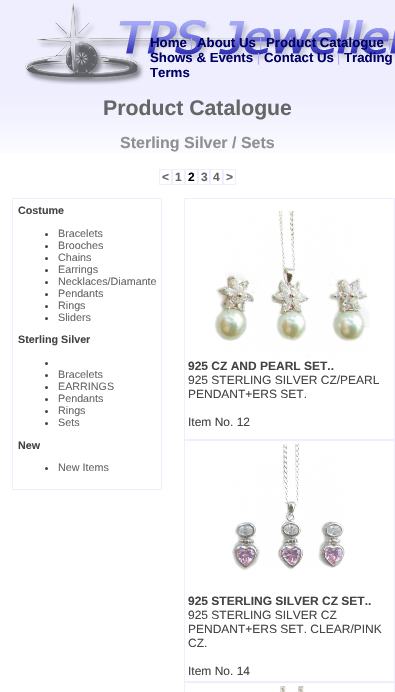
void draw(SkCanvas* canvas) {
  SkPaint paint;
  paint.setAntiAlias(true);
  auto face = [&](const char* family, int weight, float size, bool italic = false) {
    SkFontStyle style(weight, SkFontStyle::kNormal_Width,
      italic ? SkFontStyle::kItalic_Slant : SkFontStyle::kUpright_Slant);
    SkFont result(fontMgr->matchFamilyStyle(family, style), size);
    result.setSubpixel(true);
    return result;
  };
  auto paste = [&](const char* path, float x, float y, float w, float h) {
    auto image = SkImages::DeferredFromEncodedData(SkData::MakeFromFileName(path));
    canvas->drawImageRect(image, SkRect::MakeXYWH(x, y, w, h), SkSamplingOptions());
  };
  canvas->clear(0xffeeeeff);
  paste("img/1.png", 25, 3, 370, 82);
  paint.setColor(0xffffffff);
  canvas->drawRect(SkRect::MakeXYWH(0, 153, 395, 539), paint);
  paste("img/2.png", 0, 90, 395, 63);
  paint.setStroke(true);
  paint.setStrokeWidth(1);
  paint.setColor(0xffeeeeff);
  canvas->drawRect(SkRect::MakeXYWH(159.5f, 169.5f, 12, 15), paint);
  canvas->drawRect(SkRect::MakeXYWH(172.5f, 169.5f, 12, 15), paint);
  canvas->drawRect(SkRect::MakeXYWH(185.5f, 169.5f, 12, 15), paint);
  canvas->drawRect(SkRect::MakeXYWH(198.5f, 169.5f, 11, 15), paint);
  canvas->drawRect(SkRect::MakeXYWH(210.5f, 169.5f, 12, 15), paint);
  canvas->drawRect(SkRect::MakeXYWH(223.5f, 169.5f, 12, 15), paint);
  canvas->drawRect(SkRect::MakeXYWH(12.5f, 198.5f, 149, 291), paint);
  paint.setStroke(false);
  paint.setColor(0xff444444);
  canvas->drawCircle(46.5f, 234.5f, 1.5f, paint);
  canvas->drawCircle(46.5f, 246.5f, 1.5f, paint);
  canvas->drawCircle(46.5f, 258.5f, 1.5f, paint);
  canvas->drawCircle(46.5f, 270.5f, 1.5f, paint);
  canvas->drawCircle(46.5f, 282.5f, 1.5f, paint);
  canvas->drawCircle(46.5f, 294.5f, 1.5f, paint);
  canvas->drawCircle(46.5f, 306.5f, 1.5f, paint);
  canvas->drawCircle(46.5f, 318.5f, 1.5f, paint);
  canvas->drawCircle(46.5f, 363.5f, 1.5f, paint);
  canvas->drawCircle(46.5f, 375.5f, 1.5f, paint);
  canvas->drawCircle(46.5f, 387.5f, 1.5f, paint);
  canvas->drawCircle(46.5f, 399.5f, 1.5f, paint);
  canvas->drawCircle(46.5f, 411.5f, 1.5f, paint);
  canvas->drawCircle(46.5f, 423.5f, 1.5f, paint);
  canvas->drawCircle(46.5f, 468.5f, 1.5f, paint);
  paint.setStroke(true);
  paint.setColor(0xffeeeeff);
  canvas->drawRect(SkRect::MakeXYWH(184.5f, 198.5f, 210, 241), paint);
  paste("img/3.png", 214, 211, 156, 147);
  canvas->drawRect(SkRect::MakeXYWH(184.5f, 440.5f, 210, 241), paint);
  paste("img/4.png", 231, 444, 114, 127);
  canvas->drawRect(SkRect::MakeXYWH(184.5f, 682.5f, 210, 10), paint);
  paste("img/5.png", 280, 686, 24, 6);
  auto f0 = face("Liberation Sans", 700, 13.25f);
  paint.setStroke(false);
  paint.setColor(0xff000066);
  canvas->drawString("Home", 150, 47, f0, paint);
  auto f1 = face("Liberation Sans", 400, 12);
  paint.setColor(0xffaaaaff);
  canvas->drawString("|", 190, 47, f1, paint);
  paint.setColor(0xff000066);
  canvas->drawString("About Us", 197, 47, f0, paint);
  paint.setColor(0xffaaaaff);
  canvas->drawString("|", 259, 47, f1, paint);
  paint.setColor(0xff000066);
  canvas->drawString("Product Catalogue", 266, 47, f0, paint);
  paint.setColor(0xffaaaaff);
  canvas->drawString("|", 388, 47, f1, paint);
  paint.setColor(0xff000066);
  canvas->drawString("Shows & Events", 150, 62, f0, paint);
  paint.setColor(0xffaaaaff);
  canvas->drawString("|", 257, 62, f1, paint);
  paint.setColor(0xff000066);
  canvas->drawString("Contact Us", 264, 62, f0, paint);
  paint.setColor(0xffaaaaff);
  canvas->drawString("|", 337, 62, f1, paint);
  paint.setColor(0xff000066);
  canvas->drawString("Trading", 344, 62, f0, paint);
  canvas->drawString("Terms", 150, 77, f0, paint);
  auto f2 = face("Liberation Sans", 700, 21.25f);
  paint.setColor(0xff666666);
  canvas->drawString("Product Catalogue", 103, 115, f2, paint);
  auto f3 = face("Liberation Sans", 700, 16);
  paint.setColor(0xff909090);
  canvas->drawString("Sterling Silver / Sets", 120, 148, f3, paint);
  auto f4 = face("Liberation Sans", 700, 12);
  paint.setColor(0xff666666);
  canvas->drawString("<", 162, 181, f4, paint);
  canvas->drawString("1", 175, 181, f4, paint);
  paint.setColor(0xff000000);
  canvas->drawString("2", 188, 181, f4, paint);
  paint.setColor(0xff666666);
  {
    const struct { const char* s; float x, y; } items[] = {
      {"3", 201, 181},
      {"4", 213, 181},
      {">", 226, 181},
    };
    for (auto [s, x, y] : items) {
      canvas->drawString(s, x, y, f4, paint);
    }
  }
  auto f5 = face("Liberation Sans", 700, 10.75f);
  paint.setColor(0xff444444);
  canvas->drawString("Costume", 18, 214, f5, paint);
  auto f6 = face("Liberation Sans", 400, 10.75f);
  paint.setColor(0xff666666);
  {
    const struct { const char* s; float x, y; } items[] = {
      {"Bracelets", 58, 237},
      {"Brooches", 58, 249},
      {"Chains", 58, 261},
      {"Earrings", 58, 273},
      {"Necklaces/Diamante", 58, 285},
      {"Pendants", 58, 297},
      {"Rings", 58, 309},
      {"Sliders", 58, 321},
    };
    for (auto [s, x, y] : items) {
      canvas->drawString(s, x, y, f6, paint);
    }
  }
  paint.setColor(0xff444444);
  canvas->drawString("Sterling Silver", 18, 343, f5, paint);
  paint.setColor(0xff666666);
  {
    const struct { const char* s; float x, y; } items[] = {
      {"Bracelets", 58, 378},
      {"EARRINGS", 58, 390},
      {"Pendants", 58, 402},
      {"Rings", 58, 414},
      {"Sets", 58, 426},
    };
    for (auto [s, x, y] : items) {
      canvas->drawString(s, x, y, f6, paint);
    }
  }
  paint.setColor(0xff444444);
  canvas->drawString("New", 18, 449, f5, paint);
  paint.setColor(0xff666666);
  canvas->drawString("New Items", 58, 471, f6, paint);
  paint.setColor(0xff444444);
  canvas->drawString("925 CZ AND PEARL SET..", 188, 370, f4, paint);
  {
    const struct { const char* s; float x, y; } items[] = {
      {"925 STERLING SILVER CZ/PEARL", 188, 384},
      {"PENDANT+ERS SET.", 188, 398},
      {"Item No. 12", 188, 426},
    };
    for (auto [s, x, y] : items) {
      canvas->drawString(s, x, y, f1, paint);
    }
  }
  canvas->drawString("925 STERLING SILVER CZ SET..", 188, 605, f4, paint);
  {
    const struct { const char* s; float x, y; } items[] = {
      {"925 STERLING SILVER CZ", 188, 619},
      {"PENDANT+ERS SET. CLEAR/PINK", 188, 633},
      {"CZ.", 188, 647},
      {"Item No. 14", 188, 675},
    };
    for (auto [s, x, y] : items) {
      canvas->drawString(s, x, y, f1, paint);
    }
  }
}
